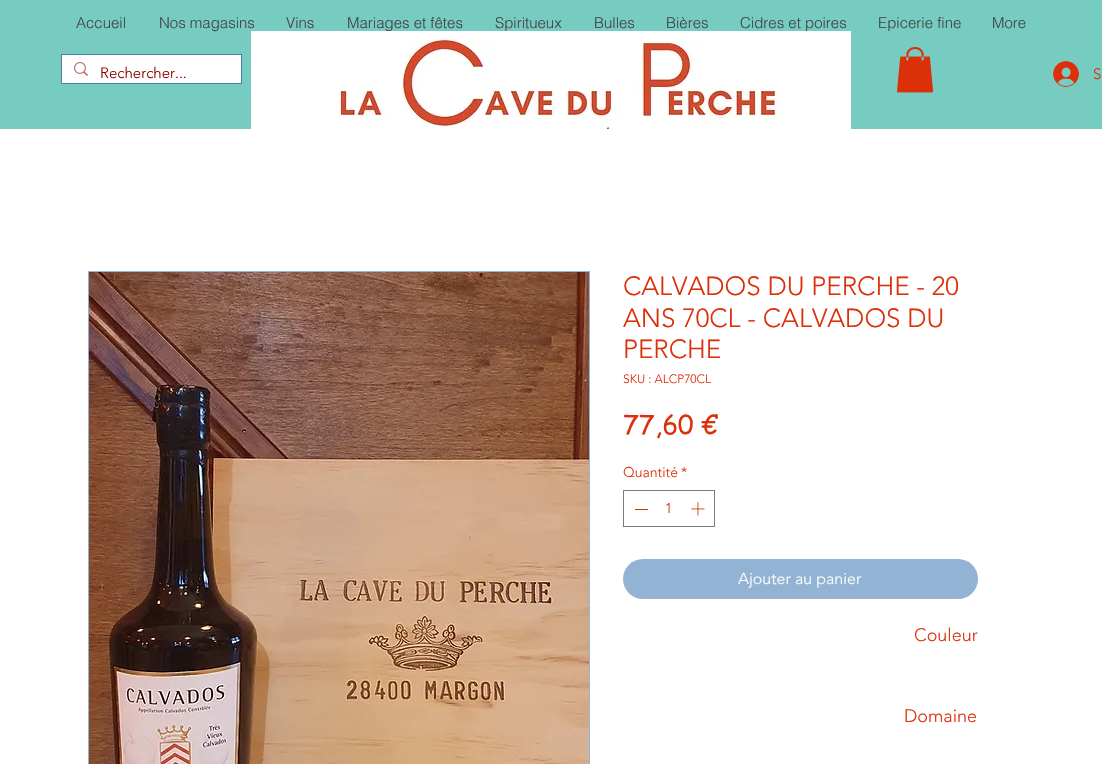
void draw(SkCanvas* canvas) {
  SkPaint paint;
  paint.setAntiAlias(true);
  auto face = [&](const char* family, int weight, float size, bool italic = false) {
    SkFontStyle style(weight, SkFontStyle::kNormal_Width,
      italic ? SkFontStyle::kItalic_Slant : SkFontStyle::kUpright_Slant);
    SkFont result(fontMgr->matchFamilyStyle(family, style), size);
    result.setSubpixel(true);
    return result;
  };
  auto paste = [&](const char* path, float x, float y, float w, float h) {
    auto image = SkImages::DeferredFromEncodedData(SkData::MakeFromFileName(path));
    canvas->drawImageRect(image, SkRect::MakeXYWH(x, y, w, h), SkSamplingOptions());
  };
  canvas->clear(0xff77ccc1);
  paint.setStroke(true);
  paint.setStrokeWidth(1);
  paint.setColor(0xff4e7cb0);
  canvas->drawRect(SkRect::MakeXYWH(61.5f, 54.5f, 180, 29), paint);
  paint.setStroke(false);
  paint.setColor(0xffffffff);
  canvas->drawRect(SkRect::MakeXYWH(62, 55, 179, 28), paint);
  paste("img/1.png", 74, 62, 14, 14);
  paste("img/3.png", 896, 47, 38, 46);
  paste("img/4.png", 1053, 61, 26, 26);
  canvas->drawRect(SkRect::MakeXYWH(0, 129, 1102, 635), paint);
  paint.setStroke(true);
  paint.setColor(0xff93b3d4);
  canvas->drawRect(SkRect::MakeXYWH(88.5f, 271.5f, 501, 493), paint);
  paste("img/5.png", 89, 272, 500, 492);
  paint.setColor(0xff7d7c7a);
  canvas->drawRect(SkRect::MakeXYWH(623.5f, 490.5f, 91, 36), paint);
  paint.setStroke(false);
  paint.setColor(0xffdc300b);
  canvas->drawRect(SkRect::MakeXYWH(635, 509, 13, 1), paint);
  paste("img/6.png", 691, 502, 14, 14);
  paint.setColor(0xff93b3d4);
  canvas->drawRoundRect(SkRect::MakeXYWH(623, 559, 355, 40), 20, 20, paint);
  auto f0 = face("helvetica", 300, 15);
  paint.setColor(0xff444444);
  {
    const struct { const char* s; float x, y; } items[] = {
      {"Accueil", 76, 28},
      {"Nos magasins", 159, 28},
      {"Vins", 286, 28},
      {"Mariages et fêtes", 347, 28},
      {"Spiritueux", 495, 28},
      {"Bulles", 594, 28},
      {"Bières", 666, 28},
      {"Cidres et poires", 740, 28},
      {"Epicerie fine", 878, 28},
      {"More", 992, 28},
    };
    for (auto [s, x, y] : items) {
      canvas->drawString(s, x, y, f0, paint);
    }
  }
  auto f1 = face("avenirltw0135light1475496", 300, 15);
  paint.setColor(0xff8b0000);
  canvas->drawString("Rechercher...", 100, 78, f1, paint);
  paste("img/2.png", 251, 31, 600, 98);
  paint.setColor(0xffdc300b);
  canvas->drawString("S", 1093, 79, f1, paint);
  auto f2 = face("avenirltw0135light1475496", 300, 26);
  {
    const struct { const char* s; float x, y; } items[] = {
      {"CALVADOS DU PERCHE - 20", 623, 295},
      {"ANS 70CL - CALVADOS DU", 623, 327},
      {"PERCHE", 623, 358},
    };
    for (auto [s, x, y] : items) {
      canvas->drawString(s, x, y, f2, paint);
    }
  }
  auto f3 = face("avenirltw0135light1475496", 300, 12);
  canvas->drawString("SKU : ALCP70CL", 623, 383, f3, paint);
  auto f4 = face("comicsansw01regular", 400, 26);
  canvas->drawString("77,60 €", 623, 434, f4, paint);
  auto f5 = face("avenirltw0135light1475496", 300, 14);
  {
    const struct { const char* s; float x, y; } items[] = {
      {"Quantité", 623, 477},
      {"*", 681, 477},
      {"1", 665, 513},
    };
    for (auto [s, x, y] : items) {
      canvas->drawString(s, x, y, f5, paint);
    }
  }
  auto f6 = face("avenirltw0135light1475496", 300, 16);
  paint.setColor(0xffffffff);
  canvas->drawString("Ajouter au panier", 738, 584, f6, paint);
  auto f7 = face("avenirltw0135light1475496", 300, 18);
  paint.setColor(0xffdc300b);
  canvas->drawString("Couleur", 914, 641, f7, paint);
  canvas->drawString("Domaine", 904, 722, f7, paint);
}
